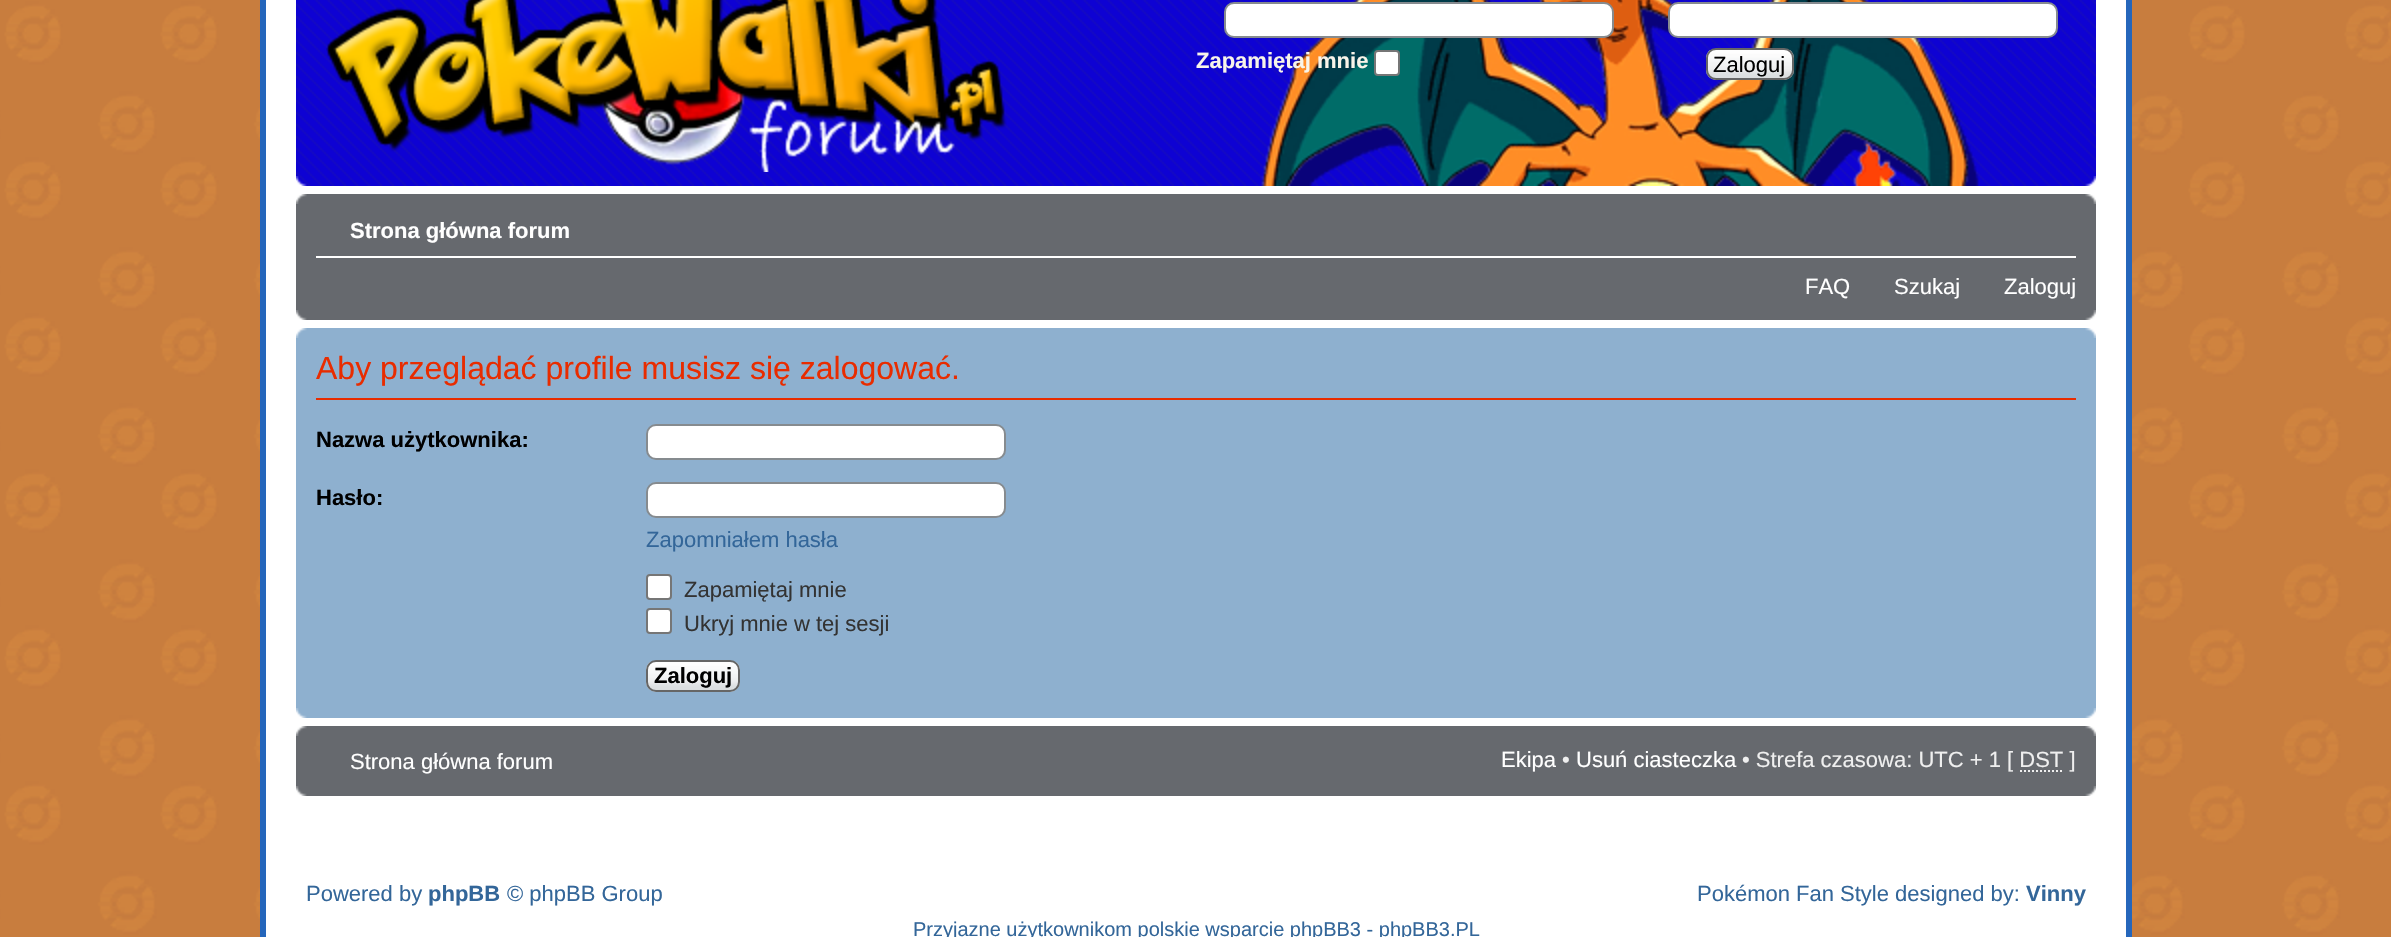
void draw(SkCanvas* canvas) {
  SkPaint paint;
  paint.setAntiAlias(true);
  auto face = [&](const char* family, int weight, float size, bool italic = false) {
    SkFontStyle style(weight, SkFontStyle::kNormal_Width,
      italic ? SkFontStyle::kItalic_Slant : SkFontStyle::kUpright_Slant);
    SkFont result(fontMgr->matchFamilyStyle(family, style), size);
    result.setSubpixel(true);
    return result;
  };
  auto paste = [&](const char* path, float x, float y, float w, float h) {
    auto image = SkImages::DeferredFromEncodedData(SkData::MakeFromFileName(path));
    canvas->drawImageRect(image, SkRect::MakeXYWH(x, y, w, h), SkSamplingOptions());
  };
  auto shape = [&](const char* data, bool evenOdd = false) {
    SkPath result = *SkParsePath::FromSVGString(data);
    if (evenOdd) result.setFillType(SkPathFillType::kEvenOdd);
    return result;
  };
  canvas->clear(0xffffffff);
  paste("img/1.png", 0, 0, 2391, 937);
  paint.setColor(0xffffffff);
  canvas->drawRect(SkRect::MakeXYWH(263, -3, 1866, 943), paint);
  paint.setStroke(true);
  paint.setStrokeWidth(6);
  paint.setColor(0xff2566bb);
  canvas->drawRect(SkRect::MakeXYWH(263, -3, 1866, 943), paint);
  paste("img/2.png", 296, 0, 1800, 186);
  paste("img/3.png", 326, 0, 681, 172);
  paint.setStroke(false);
  paint.setColor(0xffffffff);
  canvas->drawRoundRect(SkRect::MakeXYWH(1225, 3, 388, 34), 9, 9, paint);
  paint.setStroke(true);
  paint.setStrokeWidth(2);
  paint.setColor(0xff868b8f);
  canvas->drawRoundRect(SkRect::MakeXYWH(1225, 3, 388, 34), 9, 9, paint);
  paint.setStroke(false);
  paint.setColor(0xffffffff);
  canvas->drawRoundRect(SkRect::MakeXYWH(1669, 3, 388, 34), 9, 9, paint);
  paint.setStroke(true);
  paint.setColor(0xff868b8f);
  canvas->drawRoundRect(SkRect::MakeXYWH(1669, 3, 388, 34), 9, 9, paint);
  paint.setStroke(false);
  paint.setColor(0xffffffff);
  canvas->drawRoundRect(SkRect::MakeXYWH(1375, 51, 24, 24), 3, 3, paint);
  paint.setStroke(true);
  paint.setColor(0xff767676);
  canvas->drawRoundRect(SkRect::MakeXYWH(1375, 51, 24, 24), 3, 3, paint);
  paste("img/4.png", 1706, 50, 88, 30);
  paint.setColor(0xff666666);
  canvas->drawRoundRect(SkRect::MakeXYWH(1707, 49, 86, 30), 9, 9, paint);
  paste("img/5.png", 296, 176, 11, 10);
  paste("img/6.png", 2085, 176, 11, 10);
  paint.setStroke(false);
  paint.setColor(0xff66696e);
  canvas->drawRect(SkRect::MakeXYWH(296, 194, 1800, 126), paint);
  paste("img/7.png", 296, 194, 11, 10);
  paste("img/8.png", 2085, 194, 11, 10);
  paint.setColor(0xffffffff);
  canvas->drawRect(SkRect::MakeXYWH(316, 256, 1760, 2), paint);
  paste("img/9.png", 296, 310, 11, 10);
  paste("img/10.png", 2085, 310, 11, 10);
  paint.setColor(0xff8eb0cf);
  canvas->drawRect(SkRect::MakeXYWH(296, 328, 1800, 390), paint);
  paste("img/11.png", 296, 328, 11, 10);
  paste("img/12.png", 2085, 328, 11, 10);
  paint.setColor(0xffe82c00);
  canvas->drawRect(SkRect::MakeXYWH(316, 398, 1760, 2), paint);
  paint.setColor(0xffffffff);
  canvas->drawRoundRect(SkRect::MakeXYWH(647, 425, 358, 34), 9, 9, paint);
  paint.setStroke(true);
  paint.setColor(0xff868b8f);
  canvas->drawRoundRect(SkRect::MakeXYWH(647, 425, 358, 34), 9, 9, paint);
  paint.setStroke(false);
  paint.setColor(0xffffffff);
  canvas->drawRoundRect(SkRect::MakeXYWH(647, 483, 358, 34), 9, 9, paint);
  paint.setStroke(true);
  paint.setColor(0xff868b8f);
  canvas->drawRoundRect(SkRect::MakeXYWH(647, 483, 358, 34), 9, 9, paint);
  paint.setStroke(false);
  paint.setColor(0xffffffff);
  canvas->drawRoundRect(SkRect::MakeXYWH(647, 575, 24, 24), 3, 3, paint);
  paint.setStroke(true);
  paint.setColor(0xff767676);
  canvas->drawRoundRect(SkRect::MakeXYWH(647, 575, 24, 24), 3, 3, paint);
  paint.setStroke(false);
  paint.setColor(0xffffffff);
  canvas->drawRoundRect(SkRect::MakeXYWH(647, 609, 24, 24), 3, 3, paint);
  paint.setStroke(true);
  paint.setColor(0xff767676);
  canvas->drawRoundRect(SkRect::MakeXYWH(647, 609, 24, 24), 3, 3, paint);
  paste("img/13.png", 646, 662, 94, 30);
  paint.setColor(0xff666666);
  canvas->drawRoundRect(SkRect::MakeXYWH(647, 661, 92, 30), 9, 9, paint);
  paste("img/14.png", 296, 708, 11, 10);
  paste("img/15.png", 2085, 708, 11, 10);
  paint.setStroke(false);
  paint.setColor(0xff66696e);
  canvas->drawRect(SkRect::MakeXYWH(296, 726, 1800, 70), paint);
  paste("img/7.png", 296, 726, 11, 10);
  paste("img/8.png", 2085, 726, 11, 10);
  paint.setStroke(true);
  paint.setColor(0xffefefef);
  paint.setPathEffect(SkDashPathEffect::Make({{2, 2}}, 0));
  canvas->drawPath(shape("M2020 771H2064"), paint);
  paint.setPathEffect(nullptr);
  paste("img/9.png", 296, 786, 11, 10);
  paste("img/10.png", 2085, 786, 11, 10);
  auto f0 = face("Liberation Sans", 700, 22);
  paint.setStroke(false);
  paint.setColor(0xfff8f4e9);
  canvas->drawString("Zapamiętaj mnie", 1196, 68, f0, paint);
  auto f1 = face("Liberation Sans", 400, 22);
  paint.setColor(0xff000000);
  canvas->drawString("Zaloguj", 1713, 72, f1, paint);
  paint.setColor(0xffffffff);
  canvas->drawString("Strona główna forum", 350, 238, f0, paint);
  {
    const struct { const char* s; float x, y; } items[] = {
      {"FAQ", 1805, 294},
      {"Szukaj", 1894, 294},
      {"Zaloguj", 2004, 294},
    };
    for (auto [s, x, y] : items) {
      canvas->drawString(s, x, y, f1, paint);
    }
  }
  auto f2 = face("Liberation Sans", 400, 32);
  paint.setColor(0xffe82c00);
  canvas->drawString("Aby przeglądać profile musisz się zalogować.", 316, 379, f2, paint);
  paint.setColor(0xff000000);
  canvas->drawString("Nazwa użytkownika:", 316, 447, f0, paint);
  canvas->drawString("Hasło:", 316, 505, f0, paint);
  paint.setColor(0xff336699);
  canvas->drawString("Zapomniałem hasła", 646, 547, f1, paint);
  paint.setColor(0xff333333);
  canvas->drawString("Zapamiętaj mnie", 684, 597, f1, paint);
  canvas->drawString("Ukryj mnie w tej sesji", 684, 631, f1, paint);
  paint.setColor(0xff000000);
  canvas->drawString("Zaloguj", 654, 683, f0, paint);
  paint.setColor(0xffffffff);
  canvas->drawString("Strona główna forum", 350, 769, f1, paint);
  canvas->drawString("Ekipa", 1501, 767, f1, paint);
  paint.setColor(0xffefefef);
  canvas->drawString("•", 1562, 767, f1, paint);
  paint.setColor(0xffffffff);
  canvas->drawString("Usuń ciasteczka", 1576, 767, f1, paint);
  paint.setColor(0xffefefef);
  canvas->drawString("• Strefa czasowa: UTC + 1 [ DST ]", 1742, 767, f1, paint);
  paint.setColor(0xff336699);
  canvas->drawString("Powered by", 306, 901, f1, paint);
  canvas->drawString("phpBB", 428, 901, f0, paint);
  canvas->drawString("© phpBB Group", 507, 901, f1, paint);
  canvas->drawString("Pokémon Fan Style designed by:", 1697, 901, f1, paint);
  canvas->drawString("Vinny", 2026, 901, f0, paint);
  auto f3 = face("Liberation Sans", 400, 20);
  canvas->drawString("Przyjazne użytkownikom polskie wsparcie phpBB3 - phpBB3.PL", 913, 936, f3, paint);
}
